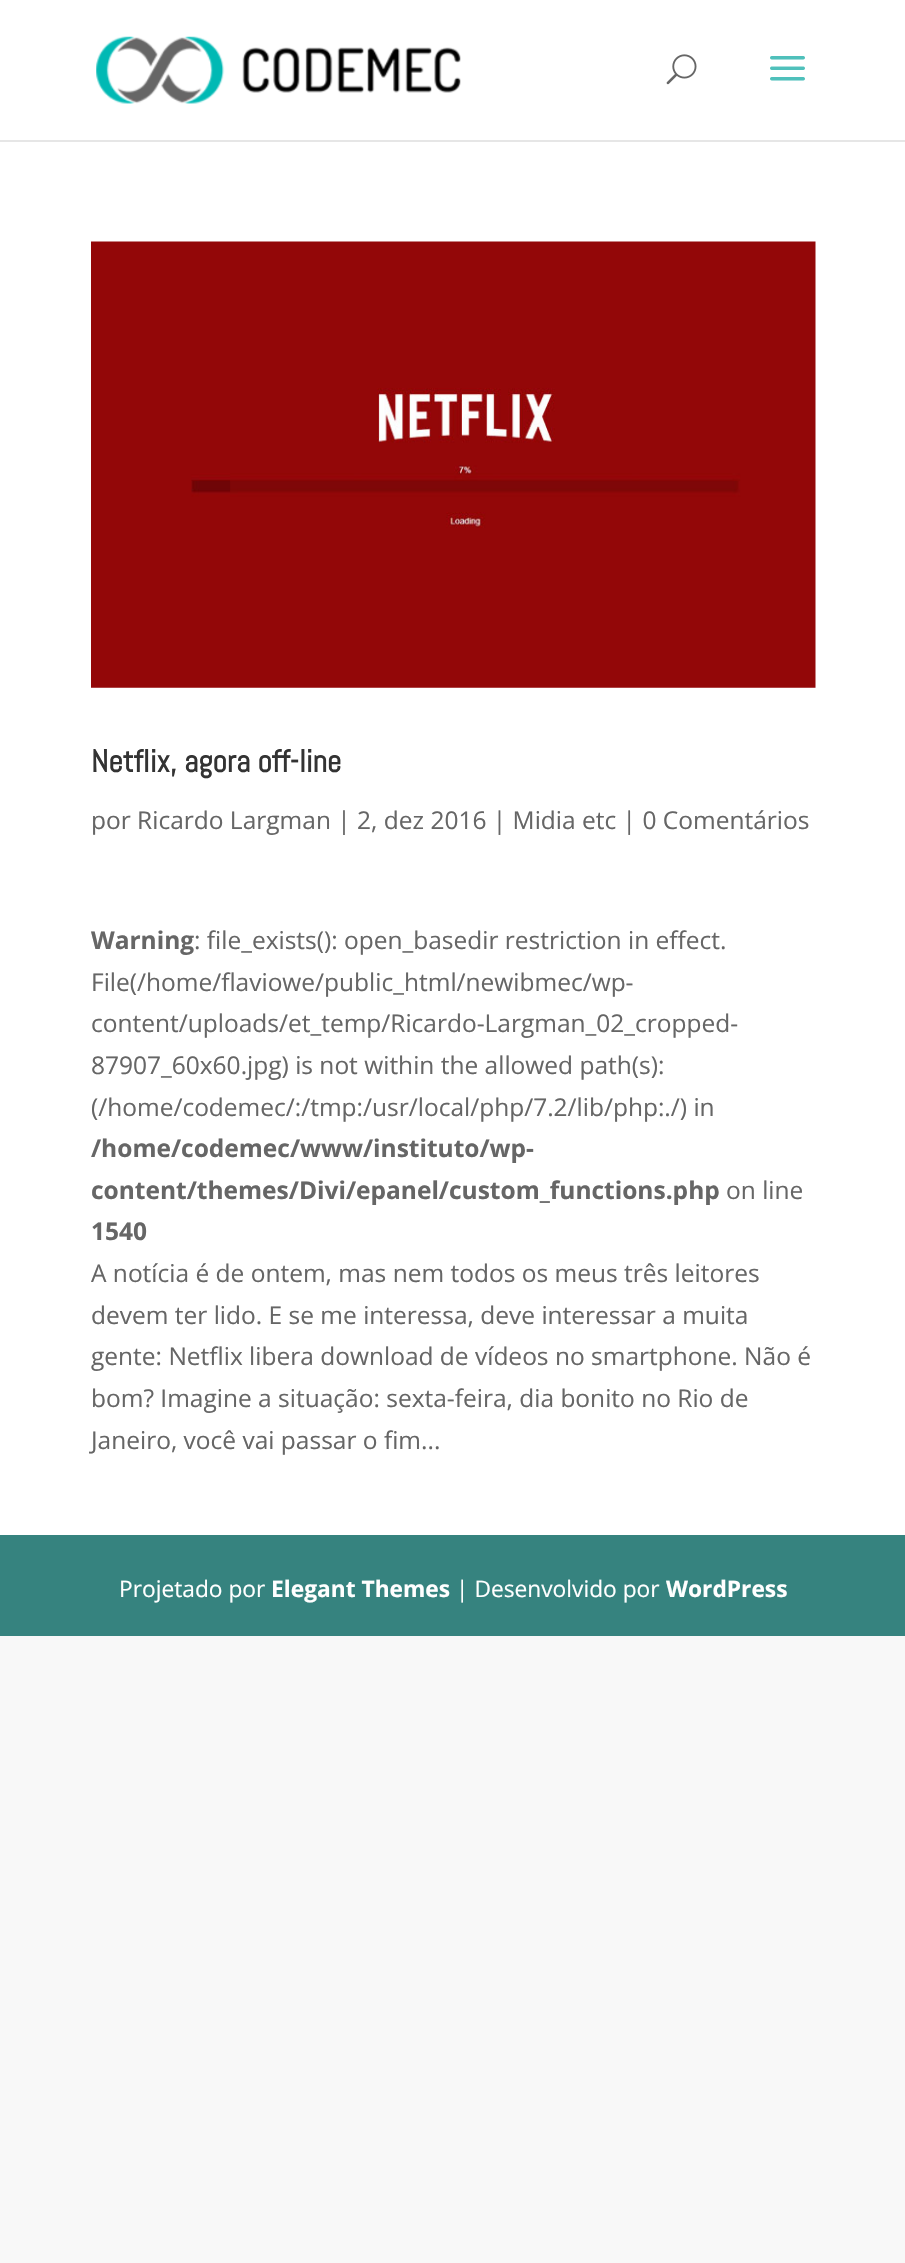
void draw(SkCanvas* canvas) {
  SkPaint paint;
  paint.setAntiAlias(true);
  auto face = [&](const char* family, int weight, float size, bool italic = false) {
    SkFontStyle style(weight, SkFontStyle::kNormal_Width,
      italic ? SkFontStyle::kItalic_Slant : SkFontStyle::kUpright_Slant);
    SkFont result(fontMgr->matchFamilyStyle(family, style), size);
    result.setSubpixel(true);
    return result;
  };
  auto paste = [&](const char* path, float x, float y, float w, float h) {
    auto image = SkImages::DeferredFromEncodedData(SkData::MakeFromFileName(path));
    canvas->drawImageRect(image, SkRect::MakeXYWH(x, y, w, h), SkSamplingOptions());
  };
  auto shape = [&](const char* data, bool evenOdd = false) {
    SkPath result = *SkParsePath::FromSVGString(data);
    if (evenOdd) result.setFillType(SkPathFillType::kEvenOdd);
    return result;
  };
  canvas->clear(0xfff8f8f8);
  paint.setColor(0xffe6e6e6);
  canvas->drawPath(shape("M0 140V142H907V2H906V140Z"), paint);
  paint.setColor(0xffffffff);
  canvas->drawRect(SkRect::MakeXYWH(0, 0, 905, 140), paint);
  paste("img/1.png", 96, 36, 365, 68);
  paste("img/2.png", 666, 54, 31, 31);
  paste("img/3.png", 770, 56, 35, 25);
  canvas->drawRect(SkRect::MakeXYWH(0, 142, 905, 1393), paint);
  paste("img/4.png", 91, 241, 725, 447);
  paint.setColor(0xff36837f);
  canvas->drawRect(SkRect::MakeXYWH(0, 1535, 905, 101), paint);
  auto f0 = face("Abel", 700, 31.5f);
  paint.setColor(0xff333333);
  canvas->drawString("Netflix, agora off-line", 91, 772, f0, paint);
  auto f1 = face("Open Sans", 400, 24.5f);
  paint.setColor(0xff666666);
  canvas->drawString("por Ricardo Largman | 2, dez 2016 | Midia etc | 0 Comentários", 91, 829, f1, paint);
  auto f2 = face("Open Sans", 700, 24.5f);
  canvas->drawString("Warning", 91, 949, f2, paint);
  {
    const struct { const char* s; float x, y; } items[] = {
      {": file_exists(): open_basedir restriction in effect.", 194, 949},
      {"File(/home/flaviowe/public_html/newibmec/wp-", 91, 991},
      {"content/uploads/et_temp/Ricardo-Largman_02_cropped-", 91, 1032},
      {"87907_60x60.jpg) is not within the allowed path(s):", 91, 1074},
      {"(/home/codemec/:/tmp:/usr/local/php/7.2/lib/php:./) in", 91, 1116},
    };
    for (auto [s, x, y] : items) {
      canvas->drawString(s, x, y, f1, paint);
    }
  }
  canvas->drawString("/home/codemec/www/instituto/wp-", 91, 1157, f2, paint);
  canvas->drawString("content/themes/Divi/epanel/custom_functions.php", 91, 1199, f2, paint);
  canvas->drawString("on line", 726, 1199, f1, paint);
  canvas->drawString("1540", 91, 1240, f2, paint);
  {
    const struct { const char* s; float x, y; } items[] = {
      {"A notícia é de ontem, mas nem todos os meus três leitores", 91, 1282},
      {"devem ter lido. E se me interessa, deve interessar a muita", 91, 1324},
      {"gente: Netflix libera download de vídeos no smartphone. Não é", 91, 1365},
      {"bom? Imagine a situação: sexta-feira, dia bonito no Rio de", 91, 1407},
      {"Janeiro, você vai passar o fim...", 91, 1449},
    };
    for (auto [s, x, y] : items) {
      canvas->drawString(s, x, y, f1, paint);
    }
  }
  auto f3 = face("Open Sans", 400, 22.75f);
  paint.setColor(0xffffffff);
  canvas->drawString("Projetado por", 119, 1597, f3, paint);
  auto f4 = face("Open Sans", 700, 22.75f);
  canvas->drawString("Elegant Themes", 271, 1597, f4, paint);
  canvas->drawString("| Desenvolvido por", 456, 1597, f3, paint);
  canvas->drawString("WordPress", 666, 1597, f4, paint);
}
